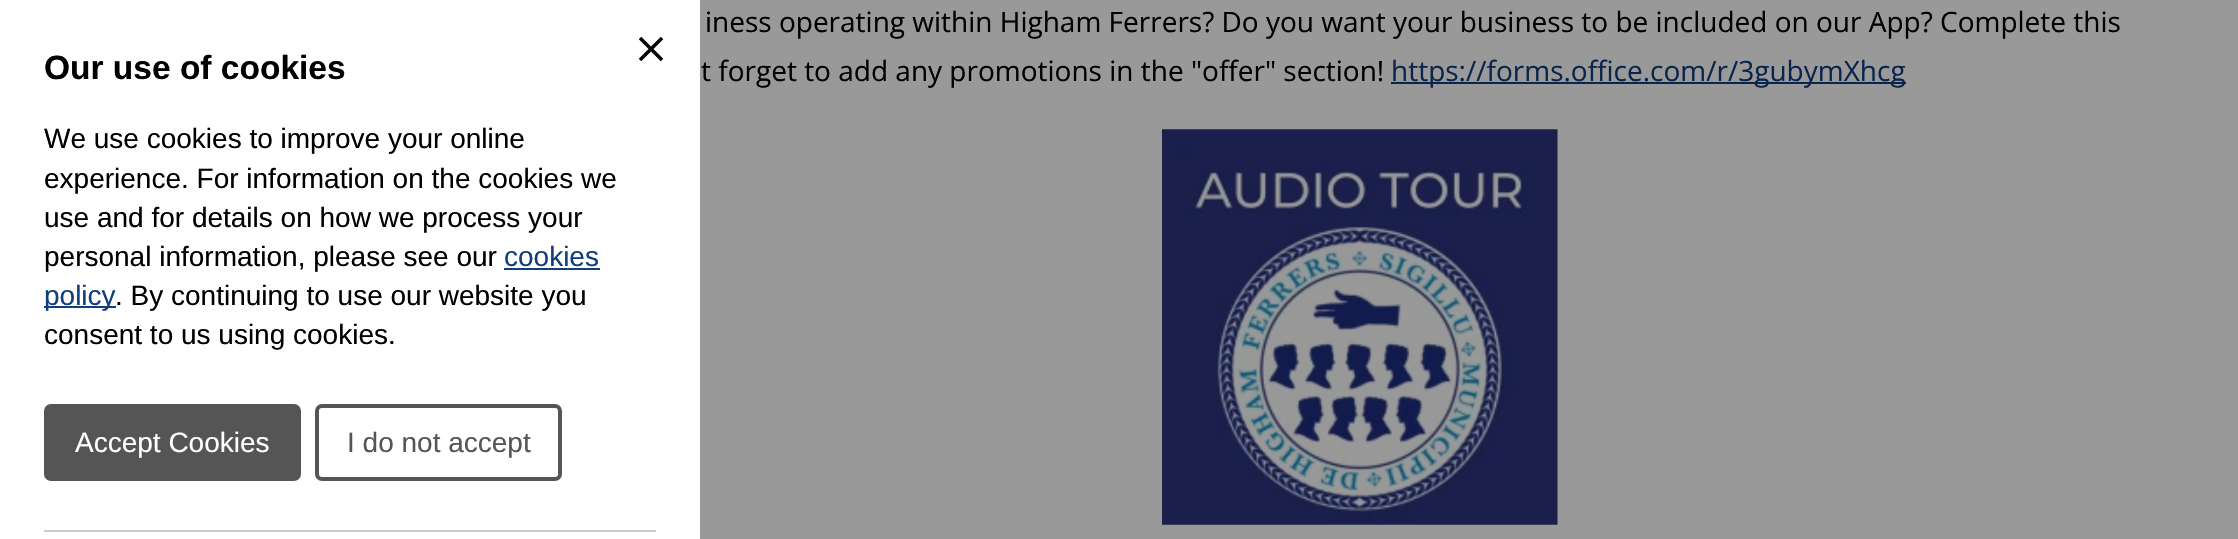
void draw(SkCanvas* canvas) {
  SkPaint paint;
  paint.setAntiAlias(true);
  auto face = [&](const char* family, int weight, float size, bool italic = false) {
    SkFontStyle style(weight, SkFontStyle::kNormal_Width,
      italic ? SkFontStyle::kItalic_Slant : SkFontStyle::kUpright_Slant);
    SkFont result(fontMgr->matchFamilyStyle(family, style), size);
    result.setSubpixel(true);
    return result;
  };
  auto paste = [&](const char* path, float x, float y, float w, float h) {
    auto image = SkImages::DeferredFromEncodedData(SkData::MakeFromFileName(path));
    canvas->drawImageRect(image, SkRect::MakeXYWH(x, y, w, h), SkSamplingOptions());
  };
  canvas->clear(0xff999999);
  paint.setColor(0xffffffff);
  canvas->drawRect(SkRect::MakeXYWH(0, 0, 700, 539), paint);
  paste("img/1.png", 638, 36, 26, 26);
  paint.setColor(0xff113e7d);
  canvas->drawRect(SkRect::MakeXYWH(504, 268, 96, 2), paint);
  canvas->drawRect(SkRect::MakeXYWH(44, 306, 72, 2), paint);
  paint.setColor(0xff555555);
  canvas->drawRoundRect(SkRect::MakeXYWH(46, 406, 253, 73), 5, 5, paint);
  paint.setStroke(true);
  paint.setStrokeWidth(4);
  canvas->drawRoundRect(SkRect::MakeXYWH(46, 406, 253, 73), 5, 5, paint);
  canvas->drawRoundRect(SkRect::MakeXYWH(317, 406, 243, 73), 5, 5, paint);
  paint.setStroke(false);
  paint.setColor(0xffcccccc);
  canvas->drawRect(SkRect::MakeXYWH(44, 530, 612, 2), paint);
  paint.setColor(0xff0a254b);
  canvas->drawRect(SkRect::MakeXYWH(1391, 82, 515, 2), paint);
  paste("img/2.png", 1162, 129, 396, 396);
  auto f0 = face("Liberation Sans", 700, 33.5f);
  paint.setColor(0xff000000);
  canvas->drawString("Our use of cookies", 44, 79, f0, paint);
  auto f1 = face("Liberation Sans", 400, 28);
  {
    const struct { const char* s; float x, y; } items[] = {
      {"We use cookies to improve your online", 44, 148},
      {"experience. For information on the cookies we", 44, 188},
      {"use and for details on how we process your", 44, 227},
      {"personal information, please see our", 44, 266},
    };
    for (auto [s, x, y] : items) {
      canvas->drawString(s, x, y, f1, paint);
    }
  }
  paint.setColor(0xff113e7d);
  canvas->drawString("cookies", 504, 266, f1, paint);
  canvas->drawString("policy", 44, 305, f1, paint);
  paint.setColor(0xff000000);
  canvas->drawString(". By continuing to use our website you", 115, 305, f1, paint);
  canvas->drawString("consent to us using cookies.", 44, 344, f1, paint);
  paint.setColor(0xffffffff);
  canvas->drawString("Accept Cookies", 75, 452, f1, paint);
  paint.setColor(0xff555555);
  canvas->drawString("I do not accept", 347, 452, f1, paint);
  auto f2 = face("Open Sans", 400, 28);
  paint.setColor(0xff000000);
  canvas->drawString("iness operating within Higham Ferrers? Do you want your business to be included on our App? Complete this", 705, 32, f2, paint);
  canvas->drawString("t forget to add any promotions in the \"offer\" section!", 701, 81, f2, paint);
  paint.setColor(0xff0a254b);
  canvas->drawString("https://forms.office.com/r/3gubymXhcg", 1391, 81, f2, paint);
}
